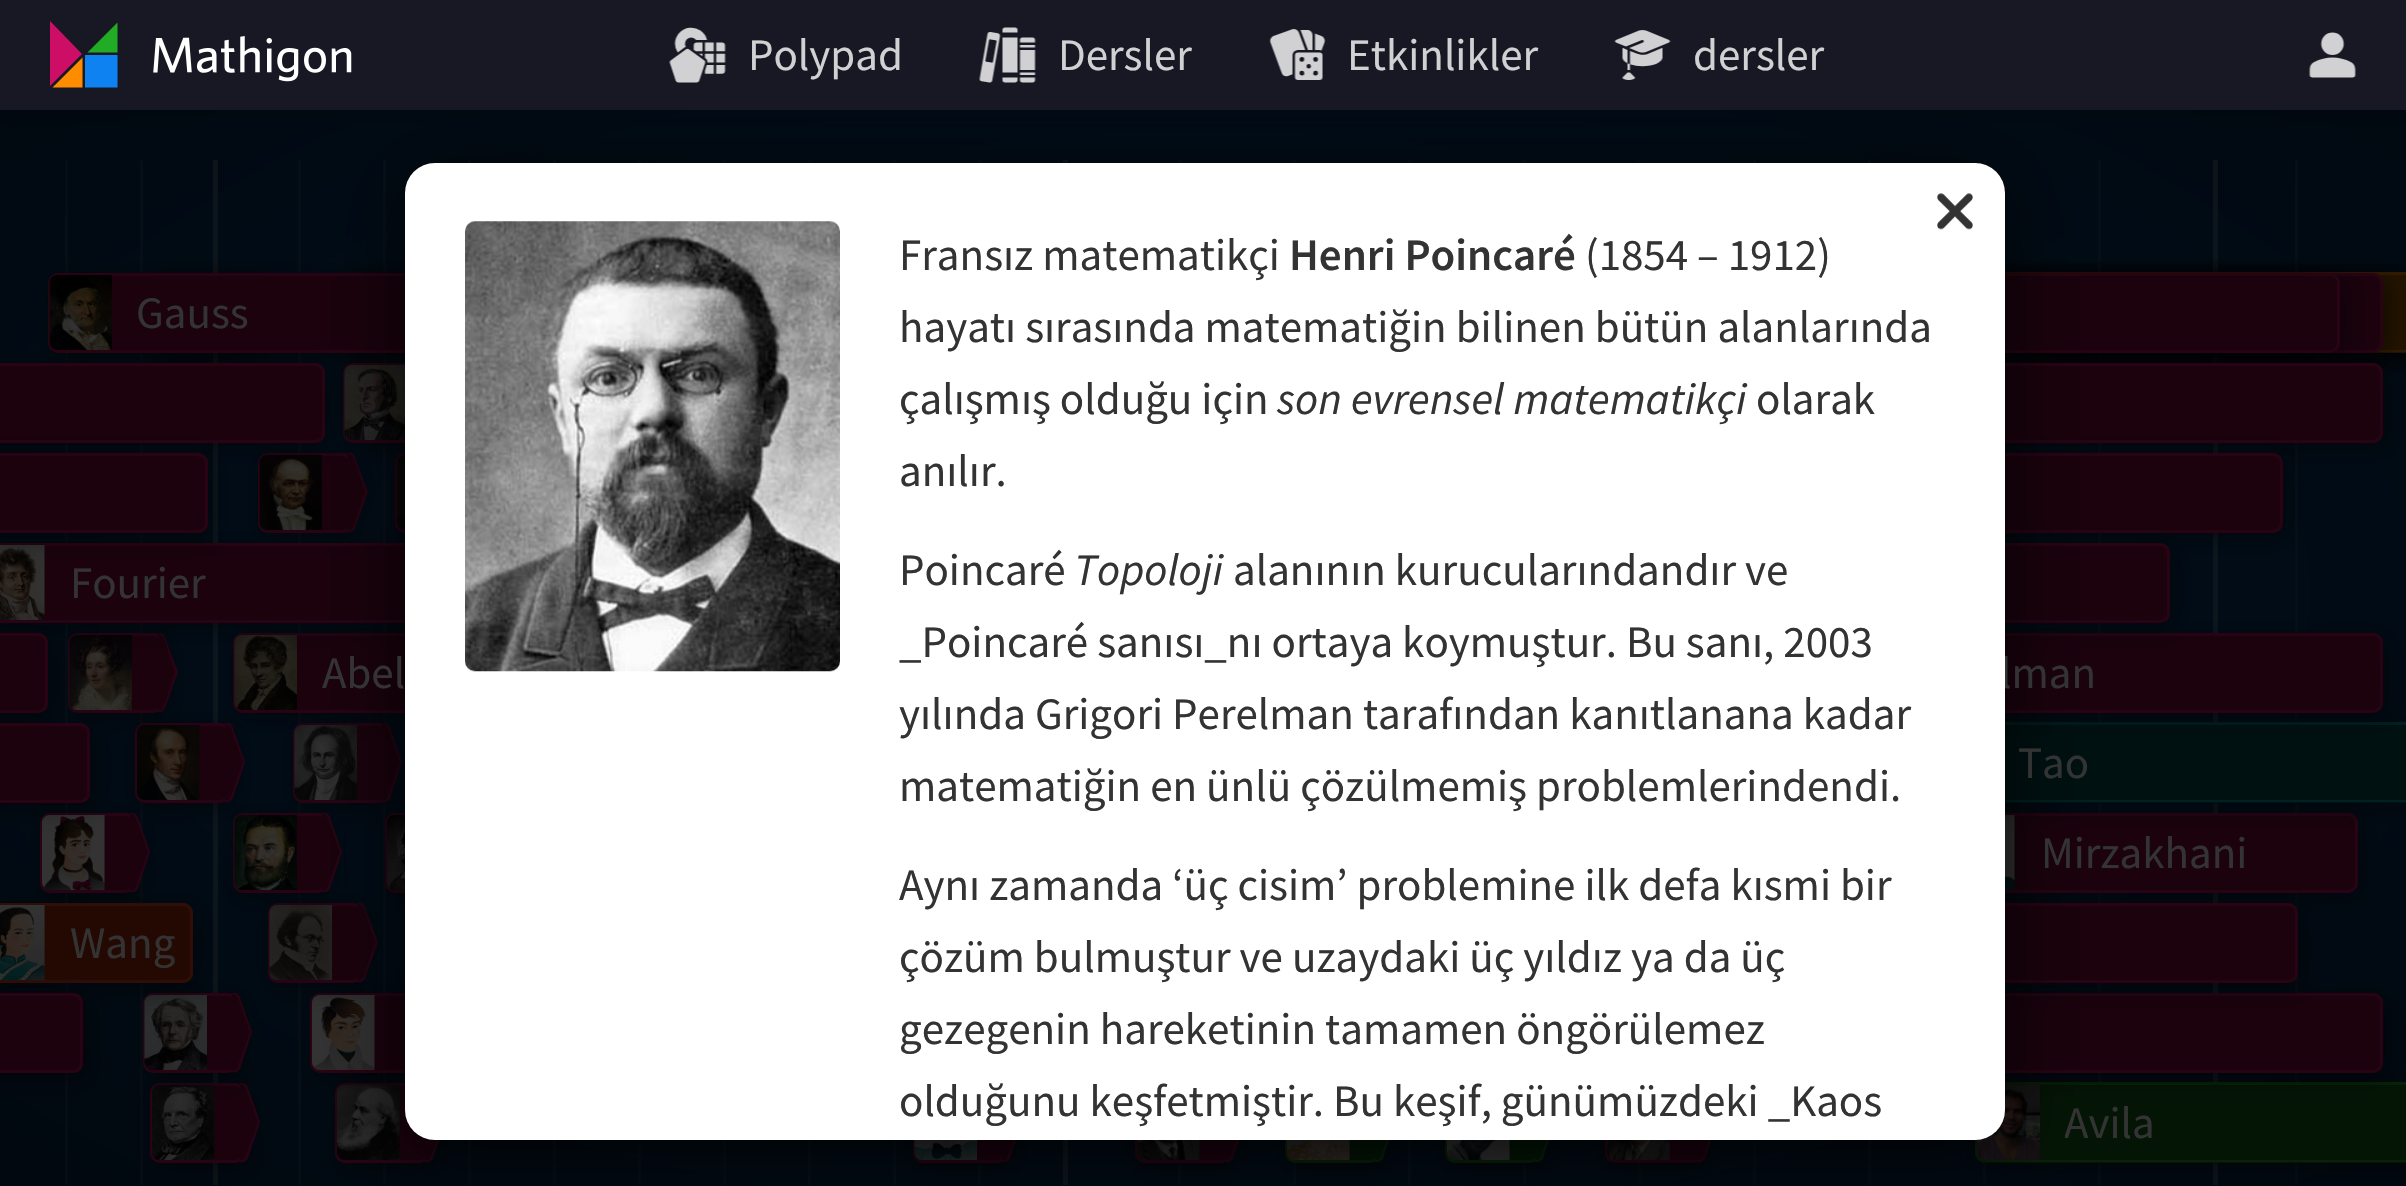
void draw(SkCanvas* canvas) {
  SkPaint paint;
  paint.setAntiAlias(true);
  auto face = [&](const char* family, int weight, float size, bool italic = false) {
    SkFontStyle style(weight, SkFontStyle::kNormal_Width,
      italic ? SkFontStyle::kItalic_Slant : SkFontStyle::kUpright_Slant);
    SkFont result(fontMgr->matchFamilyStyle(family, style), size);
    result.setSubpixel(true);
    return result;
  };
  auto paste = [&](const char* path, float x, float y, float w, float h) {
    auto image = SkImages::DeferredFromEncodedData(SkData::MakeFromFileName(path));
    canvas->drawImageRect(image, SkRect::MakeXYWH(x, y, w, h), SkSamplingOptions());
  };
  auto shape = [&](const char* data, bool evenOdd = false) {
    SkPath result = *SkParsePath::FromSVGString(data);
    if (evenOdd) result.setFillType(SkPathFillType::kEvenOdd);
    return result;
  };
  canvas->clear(0xffffffff);
  {
    const SkColor colors[] = {0xff021222, 0xff01080f};
    const float stops[] = {0, 1};
    SkMatrix m = SkMatrix::Translate(1204, 594).preScale(1702, 840);
    paint.setShader(SkGradientShader::MakeRadial({0, 0}, 1, colors, stops, 2, SkTileMode::kClamp, 0, &m));
    paint.setAlpha(255);
  }
  canvas->drawRect(SkRect::MakeXYWH(0, 110, 2406, 1076), paint);
  {
    const SkColor colors[] = {0xff071524, 0xff060c12};
    const float stops[] = {0, 1};
    SkMatrix m = SkMatrix::Translate(1204, 594).preScale(1702, 840);
    paint.setShader(SkGradientShader::MakeRadial({0, 0}, 1, colors, stops, 2, SkTileMode::kClamp, 0, &m));
    paint.setAlpha(255);
  }
  canvas->drawRect(SkRect::MakeXYWH(2295, 160, 3, 1025), paint);
  {
    const SkColor colors[] = {0xff0e1a26, 0xff0d1318};
    const float stops[] = {0, 1};
    SkMatrix m = SkMatrix::Translate(1204, 594).preScale(1702, 840);
    paint.setShader(SkGradientShader::MakeRadial({0, 0}, 1, colors, stops, 2, SkTileMode::kClamp, 0, &m));
    paint.setAlpha(255);
  }
  canvas->drawRect(SkRect::MakeXYWH(2213, 160, 5, 1025), paint);
  {
    const SkColor colors[] = {0xff071524, 0xff060c12};
    const float stops[] = {0, 1};
    SkMatrix m = SkMatrix::Translate(1204, 594).preScale(1702, 840);
    paint.setShader(SkGradientShader::MakeRadial({0, 0}, 1, colors, stops, 2, SkTileMode::kClamp, 0, &m));
    paint.setAlpha(255);
  }
  canvas->drawRect(SkRect::MakeXYWH(2098, 160, 3, 1025), paint);
  canvas->drawRect(SkRect::MakeXYWH(1983, 160, 3, 1025), paint);
  canvas->drawRect(SkRect::MakeXYWH(1868, 160, 3, 1025), paint);
  canvas->drawRect(SkRect::MakeXYWH(1753, 160, 3, 1025), paint);
  canvas->drawRect(SkRect::MakeXYWH(1638, 160, 3, 1025), paint);
  canvas->drawRect(SkRect::MakeXYWH(723, 160, 3, 1025), paint);
  canvas->drawRect(SkRect::MakeXYWH(638, 160, 3, 1025), paint);
  canvas->drawRect(SkRect::MakeXYWH(553, 160, 3, 1025), paint);
  canvas->drawRect(SkRect::MakeXYWH(468, 160, 3, 1025), paint);
  canvas->drawRect(SkRect::MakeXYWH(383, 160, 3, 1025), paint);
  canvas->drawRect(SkRect::MakeXYWH(298, 160, 3, 1025), paint);
  {
    const SkColor colors[] = {0xff0e1a26, 0xff0d1318};
    const float stops[] = {0, 1};
    SkMatrix m = SkMatrix::Translate(1204, 594).preScale(1702, 840);
    paint.setShader(SkGradientShader::MakeRadial({0, 0}, 1, colors, stops, 2, SkTileMode::kClamp, 0, &m));
    paint.setAlpha(255);
  }
  canvas->drawRect(SkRect::MakeXYWH(213, 160, 5, 1025), paint);
  {
    const SkColor colors[] = {0xff071524, 0xff060c12};
    const float stops[] = {0, 1};
    SkMatrix m = SkMatrix::Translate(1204, 594).preScale(1702, 840);
    paint.setShader(SkGradientShader::MakeRadial({0, 0}, 1, colors, stops, 2, SkTileMode::kClamp, 0, &m));
    paint.setAlpha(255);
  }
  canvas->drawRect(SkRect::MakeXYWH(140, 160, 3, 1025), paint);
  canvas->drawRect(SkRect::MakeXYWH(65, 160, 3, 1025), paint);
  paint.setShader(nullptr);
  paint.setColor(0x40000000);
  paint.setMaskFilter(SkMaskFilter::MakeBlur(kNormal_SkBlurStyle, 15));
  canvas->drawRect(SkRect::MakeXYWH(0, 0, 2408, 110), paint);
  paint.setMaskFilter(nullptr);
  {
    const struct { float x, y, w, h; SkColor color; } items[] = {
      {808, 160, 3, 1025, 0x1a333333},
      {893, 160, 3, 1025, 0x1a333333},
      {978, 160, 3, 1025, 0x1a333333},
      {1063, 160, 5, 1025, 0x40333333},
      {1178, 160, 3, 1025, 0x1a333333},
      {1293, 160, 3, 1025, 0x1a333333},
      {1408, 160, 3, 1025, 0x1a333333},
      {1523, 160, 3, 1025, 0x1a333333},
    };
    for (auto [x, y, w, h, color] : items) {
      paint.setColor(color);
      canvas->drawRect(SkRect::MakeXYWH(x, y, w, h), paint);
    }
  }
  paint.setColor(0x80000000);
  paint.setMaskFilter(SkMaskFilter::MakeBlur(kNormal_SkBlurStyle, 12.5f));
  canvas->drawRoundRect(SkRect::MakeXYWH(1668, 278, 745, 80), 10, 10, paint);
  paint.setMaskFilter(nullptr);
  paint.setMaskFilter(SkMaskFilter::MakeBlur(kNormal_SkBlurStyle, 12.5f));
  canvas->drawRoundRect(SkRect::MakeXYWH(1703, 278, 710, 80), 10, 10, paint);
  paint.setMaskFilter(nullptr);
  paint.setMaskFilter(SkMaskFilter::MakeBlur(kNormal_SkBlurStyle, 12.5f));
  canvas->drawRoundRect(SkRect::MakeXYWH(2038, 278, 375, 80), 10, 10, paint);
  paint.setMaskFilter(nullptr);
  paint.setColor(0xff231400);
  canvas->drawRect(SkRect::MakeXYWH(2373, 275, 33, 78), paint);
  paint.setColor(0xff331c00);
  canvas->drawPath(shape("M1672 272H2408V352H1672C1667 352 1662 348 1662 342V282C1662 277 1667 272 1672 272ZM1672 275H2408V350H1672C1668 350 1665 347 1665 342V282C1665 278 1668 275 1672 275Z", true), paint);
  paint.setColor(0x80000000);
  paint.setMaskFilter(SkMaskFilter::MakeBlur(kNormal_SkBlurStyle, 12.5f));
  canvas->drawRoundRect(SkRect::MakeXYWH(1495, 278, 893, 80), 10, 10, paint);
  paint.setMaskFilter(nullptr);
  paint.setMaskFilter(SkMaskFilter::MakeBlur(kNormal_SkBlurStyle, 12.5f));
  canvas->drawRoundRect(SkRect::MakeXYWH(1600, 278, 720, 80), 10, 10, paint);
  paint.setMaskFilter(nullptr);
  paint.setColor(0xff1b020d);
  canvas->drawRoundRect(SkRect::MakeXYWH(1491.5f, 274.5f, 890, 77), 8.5f, 8.5f, paint);
  paint.setStroke(true);
  paint.setStrokeWidth(3);
  paint.setColor(0xff290314);
  canvas->drawRoundRect(SkRect::MakeXYWH(1491.5f, 274.5f, 890, 77), 8.5f, 8.5f, paint);
  paint.setStroke(false);
  paint.setColor(0x80000000);
  paint.setMaskFilter(SkMaskFilter::MakeBlur(kNormal_SkBlurStyle, 12.5f));
  canvas->drawRoundRect(SkRect::MakeXYWH(1393, 278, 952, 80), 10, 10, paint);
  paint.setMaskFilter(nullptr);
  paint.setColor(0xff1b020d);
  canvas->drawRoundRect(SkRect::MakeXYWH(1389.5f, 274.5f, 949, 77), 8.5f, 8.5f, paint);
  paint.setStroke(true);
  paint.setColor(0xff290314);
  canvas->drawRoundRect(SkRect::MakeXYWH(1389.5f, 274.5f, 949, 77), 8.5f, 8.5f, paint);
  paint.setStroke(false);
  paint.setColor(0x80000000);
  paint.setMaskFilter(SkMaskFilter::MakeBlur(kNormal_SkBlurStyle, 12.5f));
  canvas->drawRoundRect(SkRect::MakeXYWH(163, 278, 95, 80), 10, 10, paint);
  paint.setMaskFilter(nullptr);
  paint.setMaskFilter(SkMaskFilter::MakeBlur(kNormal_SkBlurStyle, 12.5f));
  canvas->drawRoundRect(SkRect::MakeXYWH(348, 278, 315, 80), 10, 10, paint);
  paint.setMaskFilter(nullptr);
  paint.setMaskFilter(SkMaskFilter::MakeBlur(kNormal_SkBlurStyle, 12.5f));
  canvas->drawRoundRect(SkRect::MakeXYWH(400, 458, 628, 80), 10, 10, paint);
  paint.setMaskFilter(nullptr);
  paint.setStroke(true);
  paint.setColor(0xff290314);
  canvas->drawRoundRect(SkRect::MakeXYWH(396.5f, 454.5f, 625, 77), 8.5f, 8.5f, paint);
  paste("img/12.png", 396, 455, 9, 75);
  paint.setStroke(false);
  paint.setColor(0x80000000);
  paint.setMaskFilter(SkMaskFilter::MakeBlur(kNormal_SkBlurStyle, 12.5f));
  canvas->drawRoundRect(SkRect::MakeXYWH(348, 368, 417, 80), 10, 10, paint);
  paint.setMaskFilter(nullptr);
  paint.setStroke(true);
  paint.setColor(0xff290314);
  canvas->drawRoundRect(SkRect::MakeXYWH(344.5f, 364.5f, 414, 77), 8.5f, 8.5f, paint);
  paste("img/10.png", 344, 365, 61, 75);
  paint.setStroke(false);
  paint.setColor(0x80000000);
  paint.setMaskFilter(SkMaskFilter::MakeBlur(kNormal_SkBlurStyle, 12.5f));
  canvas->drawRoundRect(SkRect::MakeXYWH(53, 278, 635, 80), 10, 10, paint);
  paint.setMaskFilter(nullptr);
  paint.setColor(0xff1b020d);
  canvas->drawRoundRect(SkRect::MakeXYWH(49.5f, 274.5f, 632, 77), 8.5f, 8.5f, paint);
  paint.setStroke(true);
  paint.setColor(0xff290314);
  canvas->drawRoundRect(SkRect::MakeXYWH(49.5f, 274.5f, 632, 77), 8.5f, 8.5f, paint);
  paste("img/9.png", 49, 275, 63, 75);
  paint.setStroke(false);
  paint.setColor(0x80000000);
  paint.setMaskFilter(SkMaskFilter::MakeBlur(kNormal_SkBlurStyle, 12.5f));
  canvas->drawRoundRect(SkRect::MakeXYWH(263, 458, 95, 80), 10, 10, paint);
  paint.setMaskFilter(nullptr);
  paint.setColor(0xff1b020d);
  canvas->drawRoundRect(SkRect::MakeXYWH(259.5f, 454.5f, 92, 77), 8.5f, 8.5f, paint);
  paint.setStroke(true);
  paint.setColor(0xff290314);
  canvas->drawRoundRect(SkRect::MakeXYWH(259.5f, 454.5f, 92, 77), 8.5f, 8.5f, paint);
  paste("img/11.png", 259, 455, 63, 75);
  paint.setStroke(false);
  paint.setColor(0xff1b020d);
  canvas->drawPath(shape("M355 458C354 455 351 454 348 454V532C351 532 354 530 355 527L366 493Z"), paint);
  canvas->save();
  canvas->clipRect(SkRect::MakeXYWH(345, 453, 25, 80));
  paint.setColor(0xff290314);
  canvas->drawPath(shape("M355 458C354 454 351 452 348 452V454C350 454 353 456 354 458L365 492L354 526C353 529 350 531 348 530V532C351 533 354 531 355 528L368 492Z"), paint);
  canvas->restore();
  paint.setColor(0x80000000);
  paint.setMaskFilter(SkMaskFilter::MakeBlur(kNormal_SkBlurStyle, 12.5f));
  canvas->drawRoundRect(SkRect::MakeXYWH(-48, 368, 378, 80), 10, 10, paint);
  paint.setMaskFilter(nullptr);
  paint.setColor(0xff1b020d);
  canvas->drawPath(shape("M0 363H315C320.5 363 325 367.5 325 373V433C325 438.5 320.5 443 315 443H0Z"), paint);
  paint.setStroke(true);
  paint.setColor(0xff290314);
  canvas->drawRoundRect(SkRect::MakeXYWH(-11.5f, 364.5f, 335, 77), 8.5f, 8.5f, paint);
  paint.setStroke(false);
  paint.setColor(0x80000000);
  paint.setMaskFilter(SkMaskFilter::MakeBlur(kNormal_SkBlurStyle, 12.5f));
  canvas->drawRoundRect(SkRect::MakeXYWH(1278, 368, 1110, 80), 10, 10, paint);
  paint.setMaskFilter(nullptr);
  paint.setColor(0xff1b020d);
  canvas->drawRoundRect(SkRect::MakeXYWH(1274.5f, 364.5f, 1107, 77), 8.5f, 8.5f, paint);
  paint.setStroke(true);
  paint.setColor(0xff290314);
  canvas->drawRoundRect(SkRect::MakeXYWH(1274.5f, 364.5f, 1107, 77), 8.5f, 8.5f, paint);
  paint.setStroke(false);
  paint.setColor(0x80000000);
  paint.setMaskFilter(SkMaskFilter::MakeBlur(kNormal_SkBlurStyle, 12.5f));
  canvas->drawRoundRect(SkRect::MakeXYWH(1265, 458, 1023, 80), 10, 10, paint);
  paint.setMaskFilter(nullptr);
  paint.setColor(0xff1b020d);
  canvas->drawRoundRect(SkRect::MakeXYWH(1261.5f, 454.5f, 1020, 77), 8.5f, 8.5f, paint);
  paint.setStroke(true);
  paint.setColor(0xff290314);
  canvas->drawRoundRect(SkRect::MakeXYWH(1261.5f, 454.5f, 1020, 77), 8.5f, 8.5f, paint);
  paint.setStroke(false);
  paint.setColor(0x80000000);
  paint.setMaskFilter(SkMaskFilter::MakeBlur(kNormal_SkBlurStyle, 12.5f));
  canvas->drawRoundRect(SkRect::MakeXYWH(390, 818, 95, 80), 10, 10, paint);
  paint.setMaskFilter(nullptr);
  paint.setStroke(true);
  paint.setColor(0xff290314);
  canvas->drawRoundRect(SkRect::MakeXYWH(386.5f, 814.5f, 92, 77), 8.5f, 8.5f, paint);
  paste("img/20.png", 387, 815, 18, 75);
  paint.setStroke(false);
  paint.setColor(0x80000000);
  paint.setMaskFilter(SkMaskFilter::MakeBlur(kNormal_SkBlurStyle, 12.5f));
  canvas->drawRoundRect(SkRect::MakeXYWH(298, 728, 95, 80), 10, 10, paint);
  paint.setMaskFilter(nullptr);
  paint.setColor(0xff1b020d);
  canvas->drawRoundRect(SkRect::MakeXYWH(294.5f, 724.5f, 92, 77), 8.5f, 8.5f, paint);
  paint.setStroke(true);
  paint.setColor(0xff290314);
  canvas->drawRoundRect(SkRect::MakeXYWH(294.5f, 724.5f, 92, 77), 8.5f, 8.5f, paint);
  paste("img/17.png", 294, 725, 63, 75);
  paint.setStroke(false);
  paint.setColor(0xff1b020d);
  canvas->drawPath(shape("M390 728C389 725 386 724 382 724V802C386 802 389 800 390 797L401 763Z"), paint);
  canvas->save();
  canvas->clipRect(SkRect::MakeXYWH(380, 723, 25, 80));
  paint.setColor(0xff290314);
  canvas->drawPath(shape("M390 728C389 724 386 722 382 722V724C385 724 388 726 388 728L400 762L388 796C388 799 385 801 382 800V802C386 803 389 801 390 798L402 762Z"), paint);
  canvas->restore();
  paint.setColor(0x80000000);
  paint.setMaskFilter(SkMaskFilter::MakeBlur(kNormal_SkBlurStyle, 12.5f));
  canvas->drawRoundRect(SkRect::MakeXYWH(238, 638, 230, 80), 10, 10, paint);
  paint.setMaskFilter(nullptr);
  paint.setColor(0xff1b020d);
  canvas->drawRoundRect(SkRect::MakeXYWH(234.5f, 634.5f, 227, 77), 8.5f, 8.5f, paint);
  paint.setStroke(true);
  paint.setColor(0xff290314);
  canvas->drawRoundRect(SkRect::MakeXYWH(234.5f, 634.5f, 227, 77), 8.5f, 8.5f, paint);
  paste("img/15.png", 234, 635, 63, 75);
  paint.setStroke(false);
  paint.setColor(0x80000000);
  paint.setMaskFilter(SkMaskFilter::MakeBlur(kNormal_SkBlurStyle, 12.5f));
  canvas->drawRoundRect(SkRect::MakeXYWH(340, 1088, 95, 80), 10, 10, paint);
  paint.setMaskFilter(nullptr);
  paint.setColor(0xff1b020d);
  canvas->drawRoundRect(SkRect::MakeXYWH(336.5f, 1084.5f, 92, 77), 8.5f, 8.5f, paint);
  paint.setStroke(true);
  paint.setColor(0xff290314);
  canvas->drawRoundRect(SkRect::MakeXYWH(336.5f, 1084.5f, 92, 77), 8.5f, 8.5f, paint);
  paste("img/27.png", 337, 1085, 63, 75);
  paint.setStroke(false);
  paint.setColor(0xff1b020d);
  canvas->drawPath(shape("M432 1088C431 1085 428 1084 425 1084V1162C428 1162 431 1160 432 1157L444 1123Z"), paint);
  paint.setColor(0xff290314);
  canvas->drawPath(shape("M433 1088C432 1084 428 1082 425 1082V1084C428 1084 430 1086 431 1088L443 1122L431 1156C430 1159 428 1161 425 1160V1162C428 1163 432 1161 433 1158L445 1122Z"), paint);
  paint.setColor(0x80000000);
  paint.setMaskFilter(SkMaskFilter::MakeBlur(kNormal_SkBlurStyle, 12.5f));
  canvas->drawRoundRect(SkRect::MakeXYWH(315, 998, 178, 80), 10, 10, paint);
  paint.setMaskFilter(nullptr);
  paint.setColor(0xff1b020d);
  canvas->drawRoundRect(SkRect::MakeXYWH(311.5f, 994.5f, 175, 77), 8.5f, 8.5f, paint);
  paint.setStroke(true);
  paint.setColor(0xff290314);
  canvas->drawRoundRect(SkRect::MakeXYWH(311.5f, 994.5f, 175, 77), 8.5f, 8.5f, paint);
  paste("img/25.png", 312, 995, 63, 75);
  paint.setStroke(false);
  paint.setColor(0x80000000);
  paint.setMaskFilter(SkMaskFilter::MakeBlur(kNormal_SkBlurStyle, 12.5f));
  canvas->drawRoundRect(SkRect::MakeXYWH(273, 908, 95, 80), 10, 10, paint);
  paint.setMaskFilter(nullptr);
  paint.setColor(0xff1b020d);
  canvas->drawRoundRect(SkRect::MakeXYWH(269.5f, 904.5f, 92, 77), 8.5f, 8.5f, paint);
  paint.setStroke(true);
  paint.setColor(0xff290314);
  canvas->drawRoundRect(SkRect::MakeXYWH(269.5f, 904.5f, 92, 77), 8.5f, 8.5f, paint);
  paste("img/23.png", 269, 905, 63, 75);
  paint.setStroke(false);
  paint.setColor(0xff1b020d);
  canvas->drawPath(shape("M365 908C364 905 361 904 358 904V982C361 982 364 980 365 977L376 943Z"), paint);
  canvas->save();
  canvas->clipRect(SkRect::MakeXYWH(355, 903, 25, 80));
  paint.setColor(0xff290314);
  canvas->drawPath(shape("M365 908C364 904 361 902 358 902V904C360 904 363 906 364 908L375 942L364 976C363 979 360 981 358 980V982C361 983 364 981 365 978L378 942Z"), paint);
  canvas->restore();
  paint.setColor(0x80000000);
  paint.setMaskFilter(SkMaskFilter::MakeBlur(kNormal_SkBlurStyle, 12.5f));
  canvas->drawRoundRect(SkRect::MakeXYWH(238, 818, 95, 80), 10, 10, paint);
  paint.setMaskFilter(nullptr);
  paint.setColor(0xff1b020d);
  canvas->drawRoundRect(SkRect::MakeXYWH(234.5f, 814.5f, 92, 77), 8.5f, 8.5f, paint);
  paint.setStroke(true);
  paint.setColor(0xff290314);
  canvas->drawRoundRect(SkRect::MakeXYWH(234.5f, 814.5f, 92, 77), 8.5f, 8.5f, paint);
  paste("img/19.png", 234, 815, 63, 75);
  paint.setStroke(false);
  paint.setColor(0x80000000);
  paint.setMaskFilter(SkMaskFilter::MakeBlur(kNormal_SkBlurStyle, 12.5f));
  canvas->drawRoundRect(SkRect::MakeXYWH(140, 728, 95, 80), 10, 10, paint);
  paint.setMaskFilter(nullptr);
  paint.setColor(0xff1b020d);
  canvas->drawRoundRect(SkRect::MakeXYWH(136.5f, 724.5f, 92, 77), 8.5f, 8.5f, paint);
  paint.setStroke(true);
  paint.setColor(0xff290314);
  canvas->drawRoundRect(SkRect::MakeXYWH(136.5f, 724.5f, 92, 77), 8.5f, 8.5f, paint);
  paste("img/16.png", 137, 725, 63, 75);
  paint.setStroke(false);
  paint.setColor(0x80000000);
  paint.setMaskFilter(SkMaskFilter::MakeBlur(kNormal_SkBlurStyle, 12.5f));
  canvas->drawRoundRect(SkRect::MakeXYWH(73, 638, 95, 80), 10, 10, paint);
  paint.setMaskFilter(nullptr);
  paint.setColor(0xff1b020d);
  canvas->drawRoundRect(SkRect::MakeXYWH(69.5f, 634.5f, 92, 77), 8.5f, 8.5f, paint);
  paint.setStroke(true);
  paint.setColor(0xff290314);
  canvas->drawRoundRect(SkRect::MakeXYWH(69.5f, 634.5f, 92, 77), 8.5f, 8.5f, paint);
  paste("img/14.png", 69, 635, 63, 75);
  paint.setStroke(false);
  paint.setColor(0xff1b020d);
  canvas->drawPath(shape("M165 638C164 635 161 634 158 634V712C161 712 164 710 165 707L176 673Z"), paint);
  canvas->save();
  canvas->clipRect(SkRect::MakeXYWH(155, 633, 25, 80));
  paint.setColor(0xff290314);
  canvas->drawPath(shape("M165 638C164 634 161 632 158 632V634C160 634 163 636 164 638L175 672L164 706C163 709 160 711 158 710V712C161 713 164 711 165 708L178 672Z"), paint);
  canvas->restore();
  paint.setColor(0x80000000);
  paint.setMaskFilter(SkMaskFilter::MakeBlur(kNormal_SkBlurStyle, 12.5f));
  canvas->drawRoundRect(SkRect::MakeXYWH(-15, 548, 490, 80), 10, 10, paint);
  paint.setMaskFilter(nullptr);
  paint.setColor(0xff1b020d);
  canvas->drawRect(SkRect::MakeXYWH(44, 546, 361, 74), paint);
  paint.setStroke(true);
  paint.setColor(0xff290314);
  canvas->drawRect(SkRect::MakeXYWH(-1.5f, 544.5f, 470, 77), paint);
  paint.setStroke(false);
  paint.setColor(0x80000000);
  paint.setMaskFilter(SkMaskFilter::MakeBlur(kNormal_SkBlurStyle, 12.5f));
  canvas->drawRoundRect(SkRect::MakeXYWH(1955, 818, 408, 80), 10, 10, paint);
  paint.setMaskFilter(nullptr);
  paint.setColor(0xff1b020d);
  canvas->drawRoundRect(SkRect::MakeXYWH(1951.5f, 814.5f, 405, 77), 8.5f, 8.5f, paint);
  paint.setStroke(true);
  paint.setColor(0xff290314);
  canvas->drawRoundRect(SkRect::MakeXYWH(1951.5f, 814.5f, 405, 77), 8.5f, 8.5f, paint);
  paste("img/21.png", 2005, 815, 10, 75);
  paint.setStroke(false);
  paint.setColor(0x80000000);
  paint.setMaskFilter(SkMaskFilter::MakeBlur(kNormal_SkBlurStyle, 12.5f));
  canvas->drawRoundRect(SkRect::MakeXYWH(1933, 728, 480, 80), 10, 10, paint);
  paint.setMaskFilter(nullptr);
  paint.setColor(0xff001112);
  canvas->drawRect(SkRect::MakeXYWH(2005, 725, 401, 78), paint);
  paint.setColor(0xff002021);
  canvas->drawPath(shape("M1938 722H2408V802H1938C1932 802 1928 798 1928 792V732C1928 727 1932 722 1938 722ZM1938 725H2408V800H1938C1933 800 1930 797 1930 792V732C1930 728 1933 725 1938 725Z", true), paint);
  paint.setColor(0x80000000);
  paint.setMaskFilter(SkMaskFilter::MakeBlur(kNormal_SkBlurStyle, 12.5f));
  canvas->drawRoundRect(SkRect::MakeXYWH(1830, 638, 558, 80), 10, 10, paint);
  paint.setMaskFilter(nullptr);
  paint.setColor(0xff1b020d);
  canvas->drawRoundRect(SkRect::MakeXYWH(1826.5f, 634.5f, 555, 77), 8.5f, 8.5f, paint);
  paint.setStroke(true);
  paint.setColor(0xff290314);
  canvas->drawRoundRect(SkRect::MakeXYWH(1826.5f, 634.5f, 555, 77), 8.5f, 8.5f, paint);
  paint.setStroke(false);
  paint.setColor(0x80000000);
  paint.setMaskFilter(SkMaskFilter::MakeBlur(kNormal_SkBlurStyle, 12.5f));
  canvas->drawRoundRect(SkRect::MakeXYWH(1220, 548, 955, 80), 10, 10, paint);
  paint.setMaskFilter(nullptr);
  paint.setColor(0xff1b020d);
  canvas->drawRoundRect(SkRect::MakeXYWH(1216.5f, 544.5f, 952, 77), 8.5f, 8.5f, paint);
  paint.setStroke(true);
  paint.setColor(0xff290314);
  canvas->drawRoundRect(SkRect::MakeXYWH(1216.5f, 544.5f, 952, 77), 8.5f, 8.5f, paint);
  paint.setStroke(false);
  paint.setColor(0xff1b020d);
  canvas->drawPath(shape("M330 818C329 815 326 814 322 814V892C326 892 329 890 330 887L341 853Z"), paint);
  canvas->save();
  canvas->clipRect(SkRect::MakeXYWH(320, 813, 25, 80));
  paint.setColor(0xff290314);
  canvas->drawPath(shape("M330 818C329 814 326 812 322 812V814C325 814 328 816 328 818L340 852L328 886C328 889 325 891 322 890V892C326 893 329 891 330 888L342 852Z"), paint);
  canvas->restore();
  paint.setColor(0x80000000);
  paint.setMaskFilter(SkMaskFilter::MakeBlur(kNormal_SkBlurStyle, 12.5f));
  canvas->drawRoundRect(SkRect::MakeXYWH(1450, 1088, 95, 80), 10, 10, paint);
  paint.setMaskFilter(nullptr);
  paint.setColor(0xff041505);
  canvas->drawRoundRect(SkRect::MakeXYWH(1446.5f, 1084.5f, 92, 77), 8.5f, 8.5f, paint);
  paint.setStroke(true);
  paint.setColor(0xff072207);
  canvas->drawRoundRect(SkRect::MakeXYWH(1446.5f, 1084.5f, 92, 77), 8.5f, 8.5f, paint);
  paint.setStroke(false);
  paint.setColor(0xff041505);
  canvas->drawPath(shape("M1542 1088C1541 1085 1538 1084 1535 1084V1162C1538 1162 1541 1160 1542 1157L1554 1123Z"), paint);
  paint.setColor(0xff072207);
  canvas->drawPath(shape("M1543 1088C1542 1084 1538 1082 1535 1082V1084C1538 1084 1540 1086 1541 1088L1553 1122L1541 1156C1540 1159 1538 1161 1535 1160V1162C1538 1163 1542 1161 1543 1158L1555 1122Z"), paint);
  paint.setColor(0x80000000);
  paint.setMaskFilter(SkMaskFilter::MakeBlur(kNormal_SkBlurStyle, 12.5f));
  canvas->drawRoundRect(SkRect::MakeXYWH(1610, 1088, 95, 80), 10, 10, paint);
  paint.setMaskFilter(nullptr);
  paint.setColor(0xff1b020d);
  canvas->drawPath(shape("M1615 1083H1700V1163H1615C1609.5 1163 1605 1158.5 1605 1153V1093C1605 1087.5 1609.5 1083 1615 1083Z"), paint);
  paint.setColor(0xff290314);
  canvas->drawPath(shape("M1615 1082H1700V1162H1615C1609 1162 1605 1158 1605 1152V1092C1605 1087 1609 1082 1615 1082ZM1615 1085H1700V1160H1615C1611 1160 1608 1157 1608 1152V1092C1608 1088 1611 1085 1615 1085Z", true), paint);
  paint.setColor(0xff1b020d);
  canvas->drawPath(shape("M1705 1088C1704 1085 1701 1084 1698 1084V1162C1701 1162 1704 1160 1705 1157L1716 1123Z"), paint);
  paint.setColor(0xff290314);
  canvas->drawPath(shape("M1705 1088C1704 1084 1701 1082 1698 1082V1084C1700 1084 1703 1086 1704 1088L1715 1122L1704 1156C1703 1159 1700 1161 1698 1160V1162C1701 1163 1704 1161 1705 1158L1718 1122Z"), paint);
  paint.setColor(0x80000000);
  paint.setMaskFilter(SkMaskFilter::MakeBlur(kNormal_SkBlurStyle, 12.5f));
  canvas->drawRoundRect(SkRect::MakeXYWH(1980, 1088, 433, 80), 10, 10, paint);
  paint.setMaskFilter(nullptr);
  paint.setColor(0xff041505);
  canvas->drawPath(shape("M1985 1083H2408V1163H1985C1979.5 1163 1975 1158.5 1975 1153V1093C1975 1087.5 1979.5 1083 1985 1083Z"), paint);
  paint.setColor(0xff072207);
  canvas->drawPath(shape("M1985 1082H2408V1162H1985C1979 1162 1975 1158 1975 1152V1092C1975 1087 1979 1082 1985 1082ZM1985 1085H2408V1160H1985C1981 1160 1978 1157 1978 1152V1092C1978 1088 1981 1085 1985 1085Z", true), paint);
  paste("img/33.png", 1976, 1085, 64, 75);
  paint.setColor(0x80000000);
  paint.setMaskFilter(SkMaskFilter::MakeBlur(kNormal_SkBlurStyle, 12.5f));
  canvas->drawRoundRect(SkRect::MakeXYWH(1428, 998, 960, 80), 10, 10, paint);
  paint.setMaskFilter(nullptr);
  paint.setColor(0xff1b020d);
  canvas->drawRoundRect(SkRect::MakeXYWH(1424.5f, 994.5f, 957, 77), 8.5f, 8.5f, paint);
  paint.setStroke(true);
  paint.setColor(0xff290314);
  canvas->drawRoundRect(SkRect::MakeXYWH(1424.5f, 994.5f, 957, 77), 8.5f, 8.5f, paint);
  paint.setStroke(false);
  paint.setColor(0x80000000);
  paint.setMaskFilter(SkMaskFilter::MakeBlur(kNormal_SkBlurStyle, 12.5f));
  canvas->drawRoundRect(SkRect::MakeXYWH(1348, 908, 955, 80), 10, 10, paint);
  paint.setMaskFilter(nullptr);
  paint.setColor(0xff1b020d);
  canvas->drawRoundRect(SkRect::MakeXYWH(1344.5f, 904.5f, 952, 77), 8.5f, 8.5f, paint);
  paint.setStroke(true);
  paint.setColor(0xff290314);
  canvas->drawRoundRect(SkRect::MakeXYWH(1344.5f, 904.5f, 952, 77), 8.5f, 8.5f, paint);
  paint.setStroke(false);
  paint.setColor(0x80000000);
  paint.setMaskFilter(SkMaskFilter::MakeBlur(kNormal_SkBlurStyle, 12.5f));
  canvas->drawRoundRect(SkRect::MakeXYWH(918, 1088, 95, 80), 10, 10, paint);
  paint.setMaskFilter(nullptr);
  paint.setColor(0xff1b020d);
  canvas->drawRoundRect(SkRect::MakeXYWH(914.5f, 1084.5f, 92, 77), 8.5f, 8.5f, paint);
  paint.setStroke(true);
  paint.setColor(0xff290314);
  canvas->drawRoundRect(SkRect::MakeXYWH(914.5f, 1084.5f, 92, 77), 8.5f, 8.5f, paint);
  paste("img/28.png", 914, 1140, 63, 20);
  paint.setStroke(false);
  paint.setColor(0xff1b020d);
  canvas->drawPath(shape("M1010 1088C1009 1085 1006 1084 1002 1084V1162C1006 1162 1009 1160 1010 1157L1021 1123Z"), paint);
  paint.setColor(0xff290314);
  canvas->drawPath(shape("M1010 1088C1009 1084 1006 1082 1002 1082V1084C1005 1084 1008 1086 1008 1088L1020 1122L1008 1156C1008 1159 1005 1161 1002 1160V1162C1006 1163 1009 1161 1010 1158L1022 1122Z"), paint);
  paint.setColor(0x80000000);
  paint.setMaskFilter(SkMaskFilter::MakeBlur(kNormal_SkBlurStyle, 12.5f));
  canvas->drawRoundRect(SkRect::MakeXYWH(1140, 1088, 95, 80), 10, 10, paint);
  paint.setMaskFilter(nullptr);
  paint.setColor(0xff1b020d);
  canvas->drawRoundRect(SkRect::MakeXYWH(1136.5f, 1084.5f, 92, 77), 8.5f, 8.5f, paint);
  paint.setStroke(true);
  paint.setColor(0xff290314);
  canvas->drawRoundRect(SkRect::MakeXYWH(1136.5f, 1084.5f, 92, 77), 8.5f, 8.5f, paint);
  paste("img/29.png", 1137, 1140, 63, 20);
  paint.setStroke(false);
  paint.setColor(0xff1b020d);
  canvas->drawPath(shape("M1232 1088C1231 1085 1228 1084 1225 1084V1162C1228 1162 1231 1160 1232 1157L1244 1123Z"), paint);
  paint.setColor(0xff290314);
  canvas->drawPath(shape("M1233 1088C1232 1084 1228 1082 1225 1082V1084C1228 1084 1230 1086 1231 1088L1243 1122L1231 1156C1230 1159 1228 1161 1225 1160V1162C1228 1163 1232 1161 1233 1158L1245 1122Z"), paint);
  paint.setColor(0x80000000);
  paint.setMaskFilter(SkMaskFilter::MakeBlur(kNormal_SkBlurStyle, 12.5f));
  canvas->drawRoundRect(SkRect::MakeXYWH(1290, 1088, 95, 80), 10, 10, paint);
  paint.setMaskFilter(nullptr);
  paint.setColor(0xff041505);
  canvas->drawRoundRect(SkRect::MakeXYWH(1286.5f, 1084.5f, 92, 77), 8.5f, 8.5f, paint);
  paint.setStroke(true);
  paint.setColor(0xff072207);
  canvas->drawRoundRect(SkRect::MakeXYWH(1286.5f, 1084.5f, 92, 77), 8.5f, 8.5f, paint);
  paste("img/30.png", 1287, 1140, 63, 20);
  paint.setStroke(false);
  paint.setColor(0xff041505);
  canvas->drawPath(shape("M1382 1088C1381 1085 1378 1084 1375 1084V1162C1378 1162 1381 1160 1382 1157L1394 1123Z"), paint);
  paint.setColor(0xff072207);
  canvas->drawPath(shape("M1383 1088C1382 1084 1378 1082 1375 1082V1084C1378 1084 1380 1086 1381 1088L1393 1122L1381 1156C1380 1159 1378 1161 1375 1160V1162C1378 1163 1382 1161 1383 1158L1395 1122Z"), paint);
  paste("img/31.png", 1447, 1140, 63, 20);
  paste("img/32.png", 1607, 1140, 63, 20);
  canvas->save();
  canvas->clipPath(shape("M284 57H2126V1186H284ZM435 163H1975C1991.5 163 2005 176.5 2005 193V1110C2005 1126.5 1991.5 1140 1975 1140H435C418.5 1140 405 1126.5 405 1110V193C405 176.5 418.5 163 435 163Z", true), true);
  paint.setColor(0xcc000000);
  paint.setMaskFilter(SkMaskFilter::MakeBlur(kNormal_SkBlurStyle, 40));
  canvas->drawRoundRect(SkRect::MakeXYWH(405, 178, 1600, 977), 30, 30, paint);
  paint.setMaskFilter(nullptr);
  canvas->restore();
  paint.setColor(0xff181824);
  canvas->drawRect(SkRect::MakeXYWH(0, 0, 2406, 110), paint);
  paint.setColor(0xfffd8c00);
  canvas->drawPath(shape("M82.5 87.5V57.5L52.5 87.5Z"), paint);
  paint.setColor(0xffcd0e66);
  canvas->drawPath(shape("M50 21V86L82 54Z"), paint);
  paint.setColor(0xff22ab24);
  canvas->drawPath(shape("M117.5 22.5L87.5 52.5H117.5"), paint);
  paint.setColor(0xff0f82f2);
  canvas->drawPath(shape("M117.5 55H85V87.5H117.5"), paint);
  paste("img/1.png", 153, 36, 199, 46);
  paste("img/2.png", 669, 27, 57, 56);
  paste("img/3.png", 979, 27, 57, 56);
  paste("img/4.png", 1269, 29, 57, 51);
  paste("img/5.png", 1614, 30, 57, 50);
  paste("img/6.png", 2309, 32, 47, 46);
  paste("img/13.png", 0, 545, 45, 75);
  paint.setColor(0x80000000);
  paint.setMaskFilter(SkMaskFilter::MakeBlur(kNormal_SkBlurStyle, 12.5f));
  canvas->drawRoundRect(SkRect::MakeXYWH(-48, 458, 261, 80), 10, 10, paint);
  paint.setMaskFilter(nullptr);
  paint.setColor(0xff1b020d);
  canvas->drawPath(shape("M0 453H198C203.5 453 208 457.5 208 463V523C208 528.5 203.5 533 198 533H0Z"), paint);
  paint.setStroke(true);
  paint.setColor(0xff290314);
  canvas->drawRoundRect(SkRect::MakeXYWH(-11.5f, 454.5f, 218, 77), 8.5f, 8.5f, paint);
  paint.setStroke(false);
  paint.setColor(0x80000000);
  paint.setMaskFilter(SkMaskFilter::MakeBlur(kNormal_SkBlurStyle, 12.5f));
  canvas->drawRoundRect(SkRect::MakeXYWH(-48, 638, 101, 80), 10, 10, paint);
  paint.setMaskFilter(nullptr);
  paint.setColor(0xff1b020d);
  canvas->drawPath(shape("M0 633H38C43.5 633 48 637.5 48 643V703C48 708.5 43.5 713 38 713H0Z"), paint);
  paint.setStroke(true);
  paint.setColor(0xff290314);
  canvas->drawRoundRect(SkRect::MakeXYWH(-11.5f, 634.5f, 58, 77), 8.5f, 8.5f, paint);
  paint.setStroke(false);
  paint.setColor(0x80000000);
  paint.setMaskFilter(SkMaskFilter::MakeBlur(kNormal_SkBlurStyle, 12.5f));
  canvas->drawRoundRect(SkRect::MakeXYWH(45, 818, 95, 80), 10, 10, paint);
  paint.setMaskFilter(nullptr);
  paint.setColor(0xff1b020d);
  canvas->drawRoundRect(SkRect::MakeXYWH(41.5f, 814.5f, 92, 77), 8.5f, 8.5f, paint);
  paint.setStroke(true);
  paint.setColor(0xff290314);
  canvas->drawRoundRect(SkRect::MakeXYWH(41.5f, 814.5f, 92, 77), 8.5f, 8.5f, paint);
  paste("img/18.png", 42, 815, 63, 75);
  paint.setStroke(false);
  paint.setColor(0xff1b020d);
  canvas->drawPath(shape("M137 818C136 815 133 814 130 814V892C133 892 136 890 137 887L149 853Z"), paint);
  canvas->save();
  canvas->clipRect(SkRect::MakeXYWH(128, 813, 25, 80));
  paint.setColor(0xff290314);
  canvas->drawPath(shape("M138 818C137 814 133 812 130 812V814C133 814 135 816 136 818L148 852L136 886C135 889 133 891 130 890V892C133 893 137 891 138 888L150 852Z"), paint);
  canvas->restore();
  paint.setColor(0x80000000);
  paint.setMaskFilter(SkMaskFilter::MakeBlur(kNormal_SkBlurStyle, 12.5f));
  canvas->drawRoundRect(SkRect::MakeXYWH(-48, 728, 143, 80), 10, 10, paint);
  paint.setMaskFilter(nullptr);
  paint.setColor(0xff1b020d);
  canvas->drawPath(shape("M0 723H80C85.5 723 90 727.5 90 733V793C90 798.5 85.5 803 80 803H0Z"), paint);
  paint.setStroke(true);
  paint.setColor(0xff290314);
  canvas->drawRoundRect(SkRect::MakeXYWH(-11.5f, 724.5f, 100, 77), 8.5f, 8.5f, paint);
  paint.setStroke(false);
  paint.setColor(0xff1b020d);
  canvas->drawPath(shape("M232 728C231 725 228 724 225 724V802C228 802 231 800 232 797L244 763Z"), paint);
  canvas->save();
  canvas->clipRect(SkRect::MakeXYWH(223, 723, 25, 80));
  paint.setColor(0xff290314);
  canvas->drawPath(shape("M233 728C232 724 228 722 225 722V724C228 724 230 726 231 728L243 762L231 796C230 799 228 801 225 800V802C228 803 232 801 233 798L245 762Z"), paint);
  canvas->restore();
  {
    const SkColor colors[] = {0x001b020d, 0xff1b020d};
    const float stops[] = {0, 1};
    const SkPoint ends[] = {{2335, 863}, {2355, 863}};
    paint.setShader(SkGradientShader::MakeLinear(ends, colors, stops, 2, SkTileMode::kClamp));
    paint.setAlpha(255);
  }
  canvas->drawRect(SkRect::MakeXYWH(2354, 884, 1, 1), paint);
  paint.setShader(nullptr);
  paint.setColor(0x80000000);
  paint.setMaskFilter(SkMaskFilter::MakeBlur(kNormal_SkBlurStyle, 12.5f));
  canvas->drawRoundRect(SkRect::MakeXYWH(155, 1088, 95, 80), 10, 10, paint);
  paint.setMaskFilter(nullptr);
  paint.setColor(0xff1b020d);
  canvas->drawRoundRect(SkRect::MakeXYWH(151.5f, 1084.5f, 92, 77), 8.5f, 8.5f, paint);
  paint.setStroke(true);
  paint.setColor(0xff290314);
  canvas->drawRoundRect(SkRect::MakeXYWH(151.5f, 1084.5f, 92, 77), 8.5f, 8.5f, paint);
  paste("img/26.png", 152, 1085, 63, 75);
  paint.setStroke(false);
  paint.setColor(0xff1b020d);
  canvas->drawPath(shape("M247 1088C246 1085 243 1084 240 1084V1162C243 1162 246 1160 247 1157L259 1123Z"), paint);
  canvas->save();
  canvas->clipRect(SkRect::MakeXYWH(238, 1083, 25, 80));
  paint.setColor(0xff290314);
  canvas->drawPath(shape("M248 1088C247 1084 243 1082 240 1082V1084C243 1084 245 1086 246 1088L258 1122L246 1156C245 1159 243 1161 240 1160V1162C243 1163 247 1161 248 1158L260 1122Z"), paint);
  canvas->restore();
  paint.setColor(0x80000000);
  paint.setMaskFilter(SkMaskFilter::MakeBlur(kNormal_SkBlurStyle, 12.5f));
  canvas->drawRoundRect(SkRect::MakeXYWH(148, 998, 95, 80), 10, 10, paint);
  paint.setMaskFilter(nullptr);
  paint.setColor(0xff1b020d);
  canvas->drawRoundRect(SkRect::MakeXYWH(144.5f, 994.5f, 92, 77), 8.5f, 8.5f, paint);
  paint.setStroke(true);
  paint.setColor(0xff290314);
  canvas->drawRoundRect(SkRect::MakeXYWH(144.5f, 994.5f, 92, 77), 8.5f, 8.5f, paint);
  paste("img/24.png", 144, 995, 63, 75);
  paint.setStroke(false);
  paint.setColor(0xff1b020d);
  canvas->drawPath(shape("M240 998C239 995 236 994 232 994V1072C236 1072 239 1070 240 1067L251 1033Z"), paint);
  canvas->save();
  canvas->clipRect(SkRect::MakeXYWH(230, 993, 25, 80));
  paint.setColor(0xff290314);
  canvas->drawPath(shape("M240 998C239 994 236 992 232 992V994C235 994 238 996 238 998L250 1032L238 1066C238 1069 235 1071 232 1070V1072C236 1073 239 1071 240 1068L252 1032Z"), paint);
  canvas->restore();
  paint.setColor(0x80000000);
  paint.setMaskFilter(SkMaskFilter::MakeBlur(kNormal_SkBlurStyle, 12.5f));
  canvas->drawRoundRect(SkRect::MakeXYWH(-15, 908, 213, 80), 10, 10, paint);
  paint.setMaskFilter(nullptr);
  paint.setColor(0xff240903);
  canvas->drawPath(shape("M0 903H183C188.5 903 193 907.5 193 913V973C193 978.5 188.5 983 183 983H0Z"), paint);
  paint.setStroke(true);
  paint.setColor(0xff2f0e08);
  canvas->drawRoundRect(SkRect::MakeXYWH(-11.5f, 904.5f, 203, 77), 8.5f, 8.5f, paint);
  paste("img/22.png", 0, 905, 45, 75);
  paint.setStroke(false);
  paint.setColor(0x80000000);
  paint.setMaskFilter(SkMaskFilter::MakeBlur(kNormal_SkBlurStyle, 12.5f));
  canvas->drawRoundRect(SkRect::MakeXYWH(-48, 998, 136, 80), 10, 10, paint);
  paint.setMaskFilter(nullptr);
  paint.setColor(0xff1b020d);
  canvas->drawPath(shape("M0 993H73C78.5 993 83 997.5 83 1003V1063C83 1068.5 78.5 1073 73 1073H0Z"), paint);
  paint.setStroke(true);
  paint.setColor(0xff290314);
  canvas->drawRoundRect(SkRect::MakeXYWH(-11.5f, 994.5f, 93, 77), 8.5f, 8.5f, paint);
  auto f0 = face("Source Sans Pro", 400, 45);
  paint.setStroke(false);
  paint.setColor(0xffd1d1d3);
  {
    const struct { const char* s; float x, y; } items[] = {
      {"Polypad", 748, 70},
      {"Dersler", 1058, 70},
      {"Etkinlikler", 1347, 70},
      {"dersler", 1693, 70},
    };
    for (auto [s, x, y] : items) {
      canvas->drawString(s, x, y, f0, paint);
    }
  }
  paint.setColor(0xff333333);
  {
    const struct { const char* s; float x, y; } items[] = {
      {"Gauss", 136, 328},
      {"Fourier", 70, 598},
      {"Abel", 322, 688},
      {"lman", 2000, 688},
    };
    for (auto [s, x, y] : items) {
      canvas->drawString(s, x, y, f0, paint);
    }
  }
  paint.setColor(0xffffffff);
  canvas->drawRoundRect(SkRect::MakeXYWH(405, 163, 1600, 977), 30, 30, paint);
  paste("img/7.png", 1937, 193, 36, 37);
  paint.setColor(0xff333333);
  {
    const struct { const char* s; float x, y; } items[] = {
      {"olduğunu keşfetmiştir. Bu keşif, günümüzdeki _Kaos", 899, 1116},
      {"gezegenin hareketinin tamamen öngörülemez", 899, 1044},
      {"çözüm bulmuştur ve uzaydaki üç yıldız ya da üç", 899, 972},
      {"Aynı zamanda ‘üç cisim’ problemine ilk defa kısmi bir", 899, 900},
      {"matematiğin en ünlü çözülmemiş problemlerindendi.", 899, 801},
      {"yılında Grigori Perelman tarafından kanıtlanana kadar", 899, 729},
      {"_Poincaré sanısı_nı ortaya koymuştur. Bu sanı, 2003", 899, 657},
      {"alanının kurucularındandır ve", 1233, 585},
    };
    for (auto [s, x, y] : items) {
      canvas->drawString(s, x, y, f0, paint);
    }
  }
  auto f1 = face("Source Sans Pro", 400, 45, true);
  canvas->drawString("Topoloji", 1074, 585, f1, paint);
  {
    const struct { const char* s; float x, y; } items[] = {
      {"Poincaré", 899, 585},
      {"anılır.", 899, 486},
      {"olarak", 1756, 414},
    };
    for (auto [s, x, y] : items) {
      canvas->drawString(s, x, y, f0, paint);
    }
  }
  canvas->drawString("son evrensel matematikçi", 1277, 414, f1, paint);
  {
    const struct { const char* s; float x, y; } items[] = {
      {"çalışmış olduğu için", 899, 414},
      {"hayatı sırasında matematiğin bilinen bütün alanlarında", 899, 342},
      {"(1854 – 1912)", 1585, 270},
    };
    for (auto [s, x, y] : items) {
      canvas->drawString(s, x, y, f0, paint);
    }
  }
  auto f2 = face("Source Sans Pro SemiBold", 600, 45);
  canvas->drawString("Henri Poincaré", 1289, 270, f2, paint);
  canvas->drawString("Fransız matematikçi", 899, 270, f0, paint);
  paste("img/8.png", 465, 221, 375, 451);
  {
    const struct { const char* s; float x, y; } items[] = {
      {"Tao", 2018, 778},
      {"Mirzakhani", 2041, 868},
      {"Wang", 70, 958},
    };
    for (auto [s, x, y] : items) {
      canvas->drawString(s, x, y, f0, paint);
    }
  }
  {
    const SkColor colors[] = {0x00240903, 0xff240903};
    const float stops[] = {0, 1};
    const SkPoint ends[] = {{170, 953}, {190, 953}};
    paint.setShader(SkGradientShader::MakeLinear(ends, colors, stops, 2, SkTileMode::kClamp));
    paint.setAlpha(255);
  }
  canvas->drawRect(SkRect::MakeXYWH(171, 936, 4, 30), paint);
  canvas->save();
  canvas->clipRect(SkRect::MakeXYWH(2065, 1085, 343, 75));
  paint.setShader(nullptr);
  paint.setColor(0xff333333);
  canvas->drawString("Avila", 2064, 1138, f0, paint);
  canvas->restore();
}
